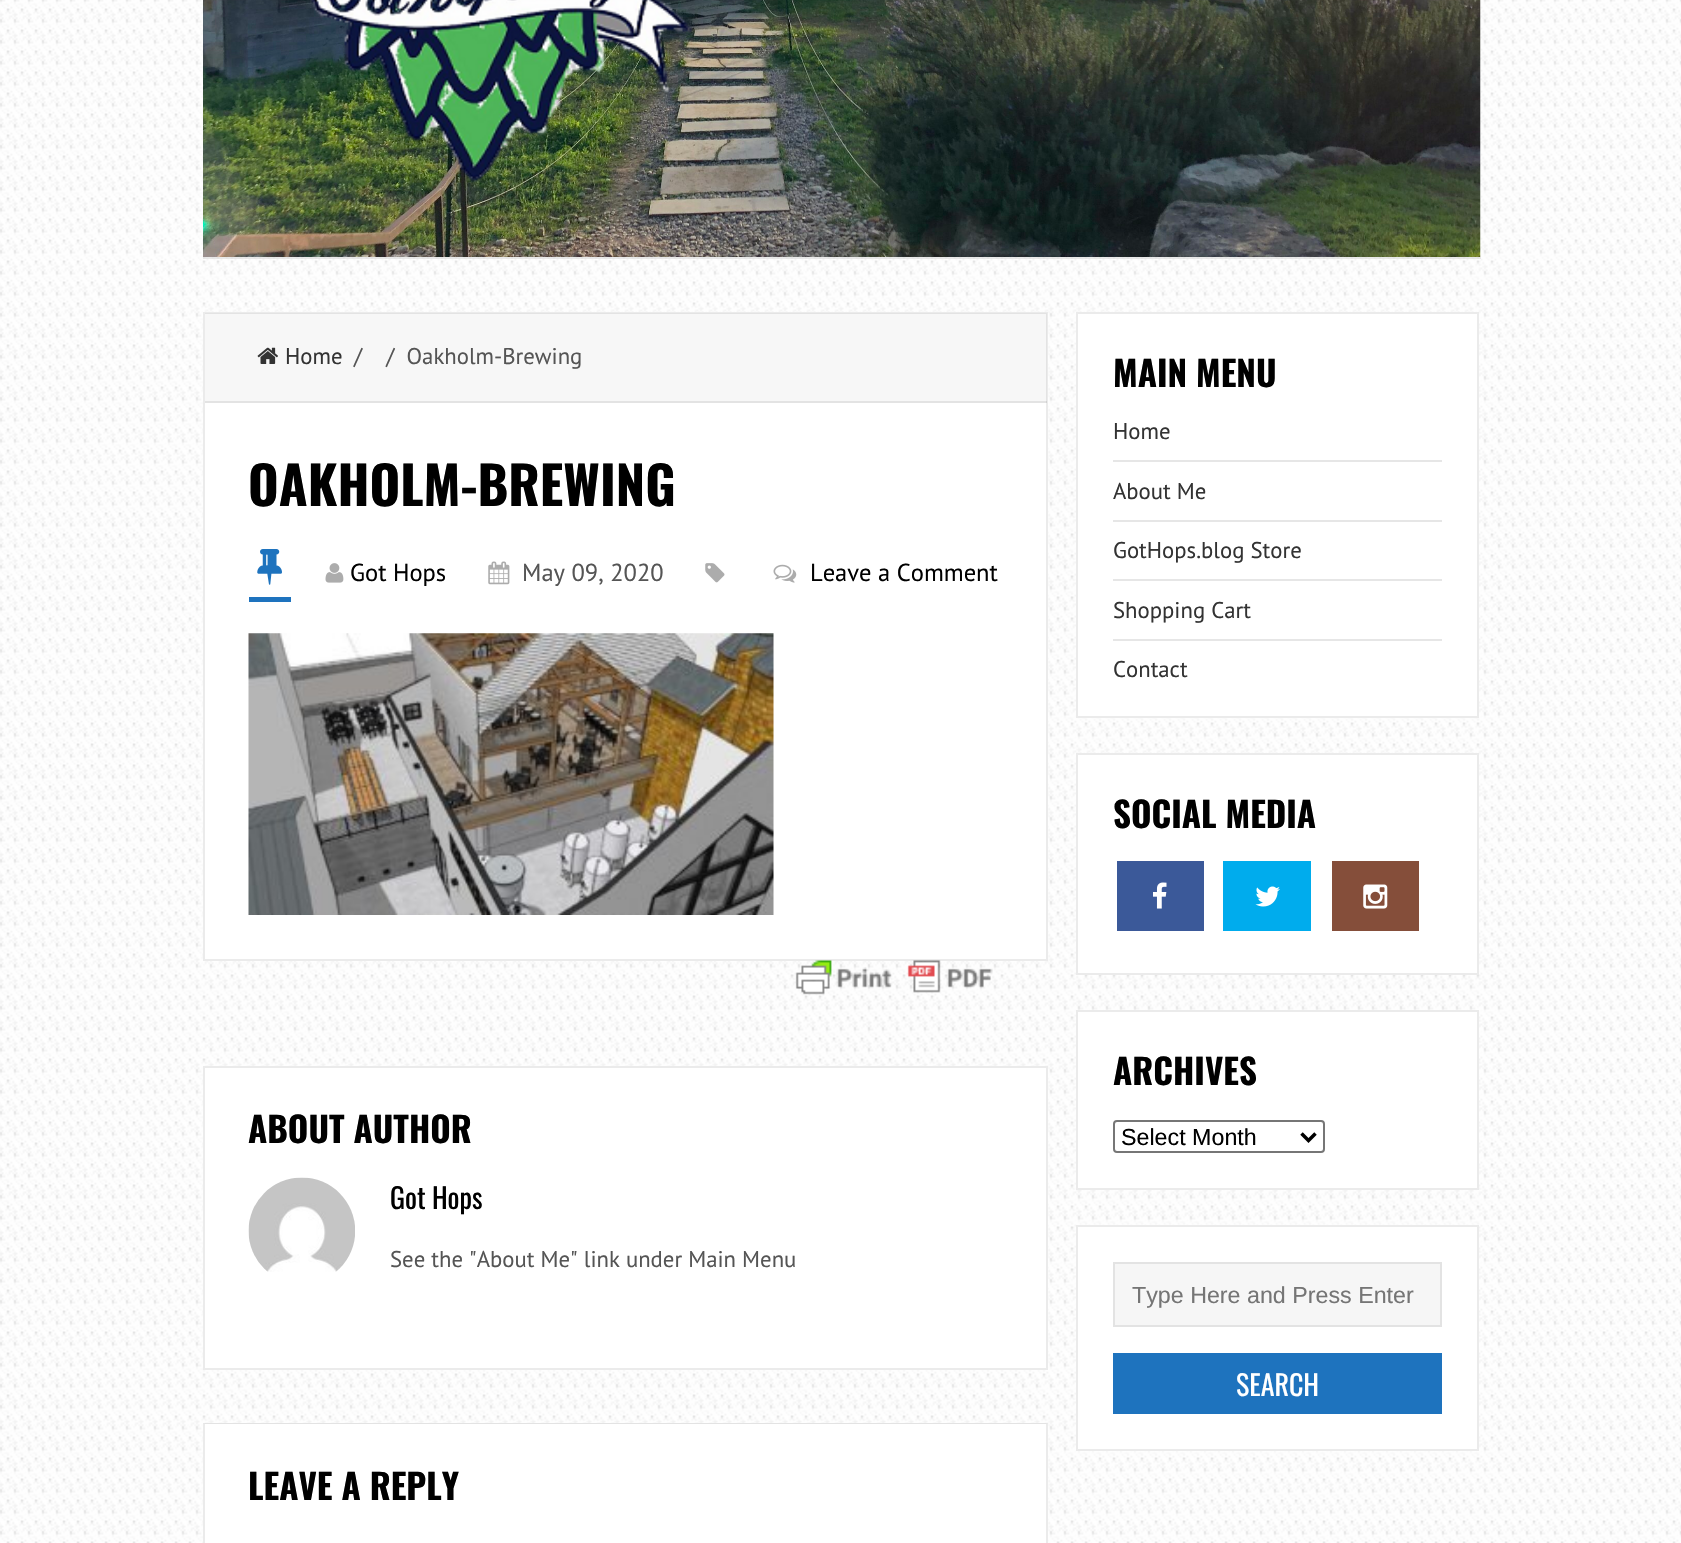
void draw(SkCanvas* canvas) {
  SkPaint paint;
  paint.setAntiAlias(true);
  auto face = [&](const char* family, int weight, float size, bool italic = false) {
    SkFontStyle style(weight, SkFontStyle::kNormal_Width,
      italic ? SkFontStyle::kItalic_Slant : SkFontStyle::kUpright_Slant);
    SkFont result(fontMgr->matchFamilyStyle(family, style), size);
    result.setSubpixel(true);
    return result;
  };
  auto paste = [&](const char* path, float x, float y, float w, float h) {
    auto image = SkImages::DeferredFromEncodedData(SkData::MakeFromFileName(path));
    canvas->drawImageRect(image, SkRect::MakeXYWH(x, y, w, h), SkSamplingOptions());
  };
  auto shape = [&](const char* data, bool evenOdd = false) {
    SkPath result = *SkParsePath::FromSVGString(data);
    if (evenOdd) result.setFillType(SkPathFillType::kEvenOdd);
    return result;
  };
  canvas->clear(0xffffffff);
  paste("img/1.png", 0, 0, 1681, 1543);
  paste("img/2.png", 203, 0, 1278, 257);
  paint.setColor(0x14000000);
  canvas->drawRect(SkRect::MakeXYWH(203, 257, 1278, 2), paint);
  paste("img/3.png", 310, 0, 383, 182);
  paint.setColor(0xffffffff);
  canvas->drawRect(SkRect::MakeXYWH(204, 313, 843, 647), paint);
  paint.setStroke(true);
  paint.setStrokeWidth(2);
  paint.setColor(0xffebebeb);
  canvas->drawRect(SkRect::MakeXYWH(204, 313, 843, 647), paint);
  paint.setStroke(false);
  paint.setColor(0x08000000);
  canvas->drawRect(SkRect::MakeXYWH(205, 313, 842, 90), paint);
  paint.setColor(0x14000000);
  canvas->drawRect(SkRect::MakeXYWH(205, 401, 842, 2), paint);
  paste("img/4.png", 257, 347, 21, 17);
  paint.setColor(0xff1e73be);
  canvas->drawRect(SkRect::MakeXYWH(249, 597, 42, 5), paint);
  paste("img/5.png", 257, 549, 25, 36);
  paste("img/6.png", 325, 563, 19, 20);
  paste("img/7.png", 488, 561, 22, 24);
  paste("img/8.png", 705, 563, 20, 20);
  paste("img/9.png", 773, 564, 24, 19);
  paste("img/10.png", 248, 633, 526, 282);
  paste("img/11.png", 795, 960, 198, 35);
  paint.setColor(0xffffffff);
  canvas->drawRect(SkRect::MakeXYWH(204, 1067, 843, 302), paint);
  paint.setStroke(true);
  paint.setColor(0xffebebeb);
  canvas->drawRect(SkRect::MakeXYWH(204, 1067, 843, 302), paint);
  paste("img/12.png", 248, 1177, 107, 95);
  paint.setStroke(false);
  paint.setColor(0xffffffff);
  canvas->drawRect(SkRect::MakeXYWH(203, 1423, 845, 120), paint);
  paint.setColor(0xffe3e3e3);
  canvas->drawPath(shape("M203 1423H1048L1046 1424H205Z"), paint);
  paint.setColor(0x14000000);
  canvas->drawPath(shape("M1048 1423V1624L1046 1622V1424Z"), paint);
  canvas->drawPath(shape("M203 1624V1423L205 1424V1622Z"), paint);
  paint.setColor(0xffffffff);
  canvas->drawRect(SkRect::MakeXYWH(1077, 313, 401, 404), paint);
  paint.setStroke(true);
  paint.setColor(0xffebebeb);
  canvas->drawRect(SkRect::MakeXYWH(1077, 313, 401, 404), paint);
  paint.setStroke(false);
  {
    const struct { float x, y, w, h; SkColor color; } items[] = {
      {1113, 460, 329, 2, 0xffe6e6e6},
      {1113, 520, 329, 2, 0xffe6e6e6},
      {1113, 579, 329, 2, 0xffe6e6e6},
      {1113, 639, 329, 2, 0xffe6e6e6},
    };
    for (auto [x, y, w, h, color] : items) {
      paint.setColor(color);
      canvas->drawRect(SkRect::MakeXYWH(x, y, w, h), paint);
    }
  }
  paint.setColor(0xffffffff);
  canvas->drawRect(SkRect::MakeXYWH(1077, 754, 401, 220), paint);
  paint.setStroke(true);
  paint.setColor(0xffebebeb);
  canvas->drawRect(SkRect::MakeXYWH(1077, 754, 401, 220), paint);
  paint.setStroke(false);
  paint.setColor(0xff3b5999);
  canvas->drawRect(SkRect::MakeXYWH(1117, 861, 87, 70), paint);
  paste("img/13.png", 1153, 882, 14, 27);
  paint.setColor(0xff00aced);
  canvas->drawRect(SkRect::MakeXYWH(1223, 861, 88, 70), paint);
  paste("img/14.png", 1255, 886, 25, 21);
  paint.setColor(0xff854e3a);
  canvas->drawRect(SkRect::MakeXYWH(1332, 861, 87, 70), paint);
  paste("img/15.png", 1363, 884, 25, 25);
  paint.setColor(0xffffffff);
  canvas->drawRect(SkRect::MakeXYWH(1077, 1011, 401, 178), paint);
  paint.setStroke(true);
  paint.setColor(0xffebebeb);
  canvas->drawRect(SkRect::MakeXYWH(1077, 1011, 401, 178), paint);
  paint.setColor(0xff767676);
  canvas->drawRoundRect(SkRect::MakeXYWH(1114, 1121, 210, 31), 3, 3, paint);
  paint.setStrokeWidth(3.5f);
  paint.setColor(0xff000000);
  canvas->drawPath(shape("M1301.5 1133.5L1308.5 1140.5L1315.5 1133.5"), paint);
  paint.setStroke(false);
  paint.setColor(0xffffffff);
  canvas->drawRect(SkRect::MakeXYWH(1077, 1226, 401, 224), paint);
  paint.setStroke(true);
  paint.setStrokeWidth(2);
  paint.setColor(0xffebebeb);
  canvas->drawRect(SkRect::MakeXYWH(1077, 1226, 401, 224), paint);
  paint.setColor(0xffe3e3e3);
  canvas->drawRect(SkRect::MakeXYWH(1114, 1263, 327, 63), paint);
  paint.setStroke(false);
  paint.setColor(0xfff6f6f6);
  canvas->drawRect(SkRect::MakeXYWH(1115, 1264, 325, 61), paint);
  paint.setColor(0xff1e73be);
  canvas->drawRect(SkRect::MakeXYWH(1113, 1353, 329, 61), paint);
  auto f0 = face("PT Sans", 400, 22.75f);
  paint.setColor(0xff333333);
  canvas->drawString("Home", 285, 364, f0, paint);
  paint.setColor(0xff555555);
  canvas->drawString("/    /  Oakholm-Brewing", 354, 364, f0, paint);
  auto f1 = face("Oswald", 700, 52.5f);
  paint.setColor(0xff000000);
  canvas->drawString("OAKHOLM-BREWING", 248, 506, f1, paint);
  auto f2 = face("PT Sans", 400, 24.5f);
  canvas->drawString("Got Hops", 350, 581, f2, paint);
  paint.setColor(0xff555555);
  canvas->drawString("May 09, 2020", 522, 581, f2, paint);
  paint.setColor(0xff000000);
  canvas->drawString("Leave a Comment", 810, 581, f2, paint);
  auto f3 = face("Oswald", 700, 35);
  canvas->drawString("ABOUT AUTHOR", 248, 1143, f3, paint);
  auto f4 = face("Oswald", 400, 28);
  canvas->drawString("Got Hops", 390, 1209, f4, paint);
  paint.setColor(0xff555555);
  canvas->drawString("See the \"About Me\" link under Main Menu", 390, 1267, f0, paint);
  paint.setColor(0xff000000);
  canvas->drawString("LEAVE A REPLY", 248, 1500, f3, paint);
  canvas->drawString("MAIN MENU", 1113, 387, f3, paint);
  paint.setColor(0xff333333);
  {
    const struct { const char* s; float x, y; } items[] = {
      {"Home", 1113, 439},
      {"About Me", 1113, 499},
      {"GotHops.blog Store", 1113, 558},
      {"Shopping Cart", 1113, 618},
      {"Contact", 1113, 677},
    };
    for (auto [s, x, y] : items) {
      canvas->drawString(s, x, y, f0, paint);
    }
  }
  paint.setColor(0xff000000);
  canvas->drawString("SOCIAL MEDIA", 1113, 828, f3, paint);
  canvas->drawString("ARCHIVES", 1113, 1085, f3, paint);
  auto f5 = face("Liberation Sans", 400, 23.25f);
  canvas->drawString("Select Month", 1121, 1145, f5, paint);
  paint.setColor(0xff757575);
  canvas->drawString("Type Here and Press Enter", 1132, 1303, f5, paint);
  paint.setColor(0xffffffff);
  canvas->drawString("SEARCH", 1236, 1396, f4, paint);
}
